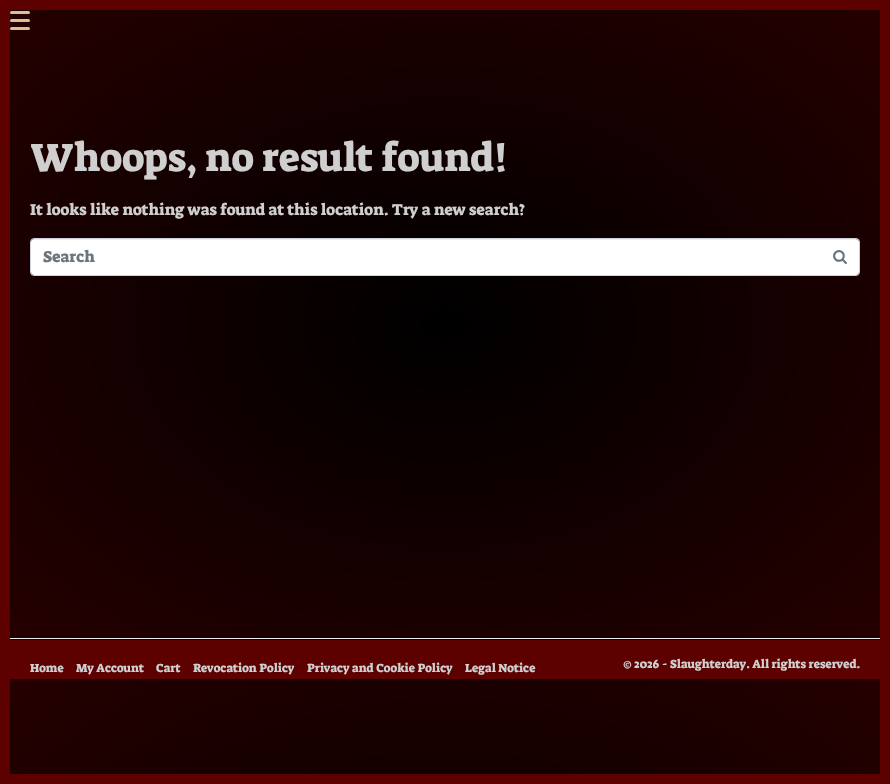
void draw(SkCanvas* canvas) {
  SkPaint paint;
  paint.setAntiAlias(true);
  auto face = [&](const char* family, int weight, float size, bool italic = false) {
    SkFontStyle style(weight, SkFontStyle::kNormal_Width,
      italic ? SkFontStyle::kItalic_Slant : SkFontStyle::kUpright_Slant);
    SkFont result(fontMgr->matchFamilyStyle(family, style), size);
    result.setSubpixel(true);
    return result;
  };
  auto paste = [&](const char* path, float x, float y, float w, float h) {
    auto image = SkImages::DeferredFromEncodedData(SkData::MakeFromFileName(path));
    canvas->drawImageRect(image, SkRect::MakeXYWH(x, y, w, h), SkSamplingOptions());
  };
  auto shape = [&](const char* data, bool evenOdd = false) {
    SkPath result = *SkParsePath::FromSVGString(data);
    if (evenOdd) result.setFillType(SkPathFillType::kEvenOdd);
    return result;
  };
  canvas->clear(0xffffffff);
  {
    const SkColor colors[] = {0xff000000, 0xff250000};
    const float stops[] = {0, 1};
    SkMatrix m = SkMatrix::Translate(445, 345).preScale(629, 487);
    paint.setShader(SkGradientShader::MakeRadial({0, 0}, 1, colors, stops, 2, SkTileMode::kClamp, 0, &m));
    paint.setAlpha(255);
  }
  canvas->drawRect(SkRect::MakeXYWH(10, 639, 870, 50), paint);
  {
    const SkColor colors[] = {0xff000000, 0xff250000};
    const float stops[] = {0, 1};
    SkMatrix m = SkMatrix::Translate(445, 1034).preScale(629, 487);
    paint.setShader(SkGradientShader::MakeRadial({0, 0}, 1, colors, stops, 2, SkTileMode::kClamp, 0, &m));
    paint.setAlpha(255);
  }
  canvas->drawRect(SkRect::MakeXYWH(10, 689, 870, 85), paint);
  {
    const SkColor colors[] = {0xff000000, 0xff250000};
    const float stops[] = {0, 1};
    SkMatrix m = SkMatrix::Translate(445, 324).preScale(615, 444);
    paint.setShader(SkGradientShader::MakeRadial({0, 0}, 1, colors, stops, 2, SkTileMode::kClamp, 0, &m));
    paint.setAlpha(255);
  }
  canvas->drawRect(SkRect::MakeXYWH(10, 10, 870, 628), paint);
  paint.setShader(nullptr);
  paint.setColor(0xffffffff);
  canvas->drawRoundRect(SkRect::MakeXYWH(31, 239, 828, 36), 3, 3, paint);
  paint.setColor(0x12000000);
  canvas->drawPath(shape("M34 240H856C858 240 859 241 859 243C859 241 858 239 856 239H34C32 239 31 241 31 243C31 241 32 240 34 240Z"), paint);
  paint.setStroke(true);
  paint.setStrokeWidth(1);
  paint.setColor(0xffced4da);
  canvas->drawRoundRect(SkRect::MakeXYWH(30.5f, 238.5f, 829, 37), 3.5f, 3.5f, paint);
  paste("img/1.png", 833, 250, 14, 15);
  paint.setStroke(false);
  paint.setColor(0xffe9ecef);
  canvas->drawRect(SkRect::MakeXYWH(10, 638, 870, 1), paint);
  paint.setColor(0xff5c0000);
  canvas->drawRect(SkRect::MakeXYWH(10, 640, 870, 39), paint);
  paint.setStroke(true);
  paint.setStrokeWidth(10);
  canvas->drawRect(SkRect::MakeXYWH(5, 5, 880, 774), paint);
  paint.setStroke(false);
  paint.setColor(0xffdabe96);
  canvas->drawRoundRect(SkRect::MakeXYWH(10, 19, 20, 3), 1.5f, 1.5f, paint);
  canvas->drawRoundRect(SkRect::MakeXYWH(10, 11, 20, 3), 1.5f, 1.5f, paint);
  canvas->drawRoundRect(SkRect::MakeXYWH(10, 27, 20, 3), 1.5f, 1.5f, paint);
  auto f0 = face("Suez One", 400, 40);
  paint.setColor(0xffcfcfcf);
  canvas->drawString("Whoops, no result found!", 30, 171, f0, paint);
  auto f1 = face("Suez One", 400, 16);
  canvas->drawString("It looks like nothing was found at this location. Try a new search?", 30, 215, f1, paint);
  paint.setColor(0xff6c757d);
  canvas->drawString("Search", 43, 262, f1, paint);
  auto f2 = face("Suez One", 400, 12);
  paint.setColor(0xffcfcfcf);
  {
    const struct { const char* s; float x, y; } items[] = {
      {"Home", 30, 672},
      {"My Account", 76, 672},
      {"Cart", 156, 672},
      {"Revocation Policy", 193, 672},
      {"Privacy and Cookie Policy", 307, 672},
      {"Legal Notice", 465, 672},
      {"© 2026 - Slaughterday. All rights reserved.", 623, 668},
    };
    for (auto [s, x, y] : items) {
      canvas->drawString(s, x, y, f2, paint);
    }
  }
}
